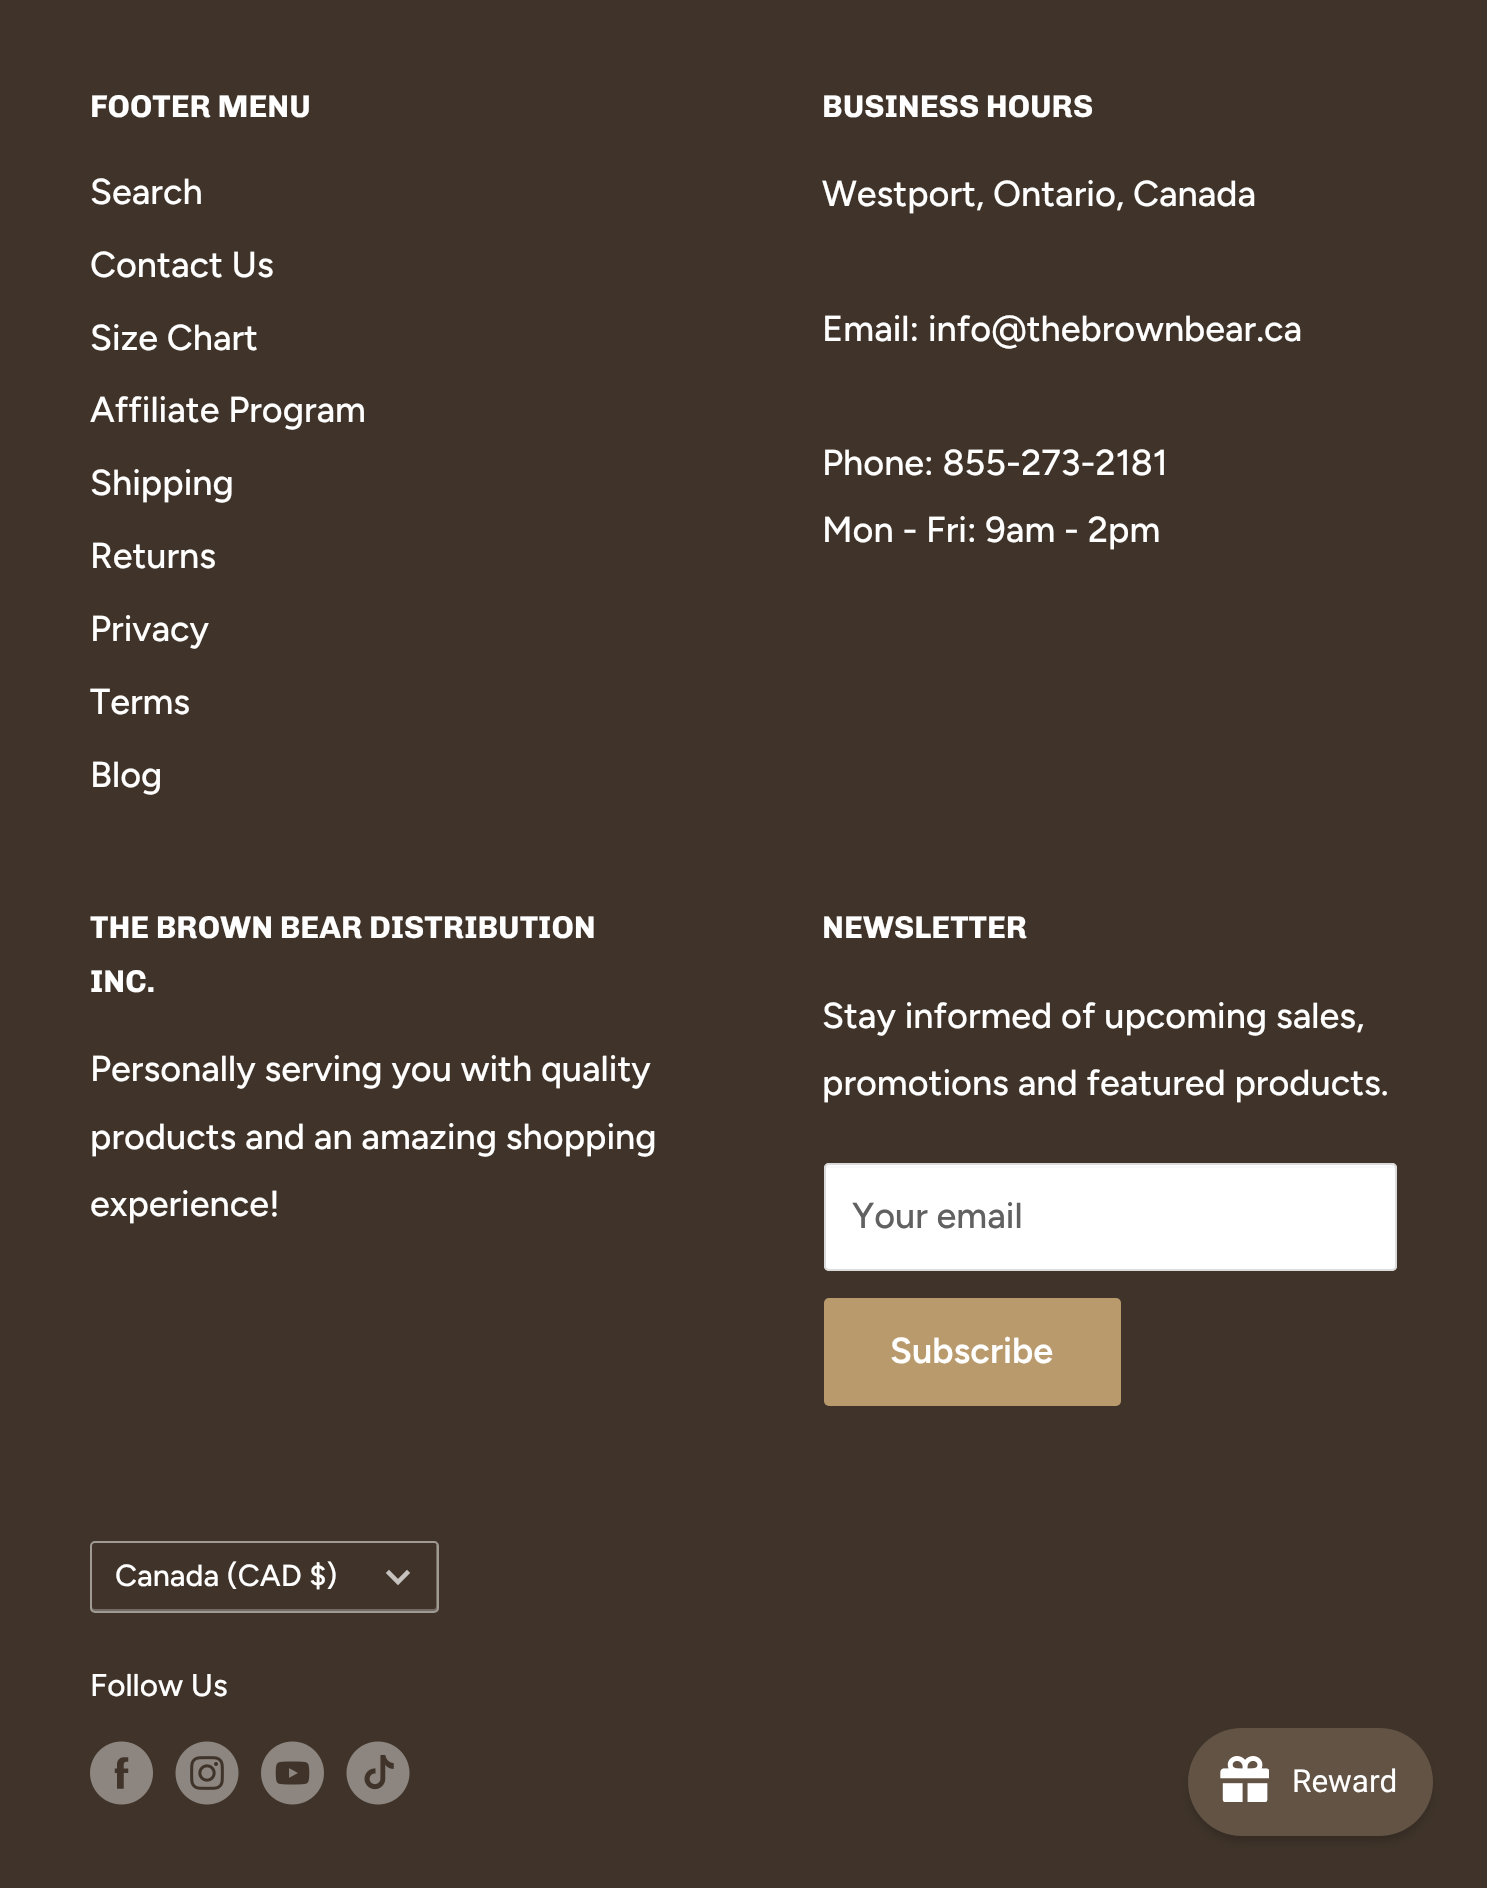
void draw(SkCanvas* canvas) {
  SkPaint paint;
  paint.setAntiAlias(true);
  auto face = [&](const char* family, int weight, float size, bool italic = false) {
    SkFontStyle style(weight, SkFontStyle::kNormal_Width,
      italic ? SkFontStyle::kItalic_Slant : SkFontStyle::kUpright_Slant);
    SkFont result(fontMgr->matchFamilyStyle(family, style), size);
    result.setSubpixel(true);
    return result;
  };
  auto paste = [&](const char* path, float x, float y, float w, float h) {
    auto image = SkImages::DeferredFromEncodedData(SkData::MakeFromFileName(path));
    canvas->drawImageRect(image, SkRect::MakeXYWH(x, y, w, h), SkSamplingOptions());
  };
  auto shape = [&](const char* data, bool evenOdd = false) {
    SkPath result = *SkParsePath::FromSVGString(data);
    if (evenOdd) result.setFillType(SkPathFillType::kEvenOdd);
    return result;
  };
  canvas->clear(0xff40342a);
  paint.setColor(0xffffffff);
  canvas->drawRoundRect(SkRect::MakeXYWH(824, 1163, 573, 108), 5, 5, paint);
  paint.setColor(0xfff9f9f9);
  canvas->drawPath(shape("M828 1168H1393C1394 1168 1395 1169 1395 1170C1395 1168 1395 1166 1393 1166H828L826 1167V1170C826 1169 827 1168 828 1168Z"), paint);
  paint.setStroke(true);
  paint.setStrokeWidth(2);
  paint.setColor(0xffdbdbdb);
  canvas->drawRoundRect(SkRect::MakeXYWH(825, 1164, 571, 106), 4, 4, paint);
  paint.setStroke(false);
  paint.setColor(0xffb99a6d);
  canvas->drawRoundRect(SkRect::MakeXYWH(824, 1298, 297, 108), 5, 5, paint);
  paint.setColor(0xff726a63);
  canvas->drawPath(shape("M92 1606V1609C92 1610 93 1611 94 1611H435C436 1611 437 1610 437 1609V1546C437 1545 437 1545 436 1544V1606C436 1608 435 1609 434 1609H94C93 1609 92 1608 92 1606Z"), paint);
  paint.setStroke(true);
  paint.setColor(0x80ffffff);
  canvas->drawRoundRect(SkRect::MakeXYWH(91, 1542, 347, 70), 4, 4, paint);
  paint.setStrokeWidth(4.5f);
  paint.setStrokeCap(SkPaint::kSquare_Cap);
  paint.setColor(0xffc6c2bf);
  canvas->drawPath(shape("M407 1573L398 1582L389 1573"), paint);
  paste("img/1.png", 90, 1741, 63, 64);
  paste("img/2.png", 175, 1741, 64, 64);
  paste("img/3.png", 261, 1741, 63, 64);
  paste("img/4.png", 346, 1741, 64, 64);
  paint.setStroke(false);
  paint.setColor(0x33000000);
  paint.setMaskFilter(SkMaskFilter::MakeBlur(kNormal_SkBlurStyle, 5.5f));
  canvas->drawRoundRect(SkRect::MakeXYWH(1190, 1737, 241, 104), 52, 52, paint);
  paint.setMaskFilter(nullptr);
  paint.setColor(0xff625344);
  canvas->drawRoundRect(SkRect::MakeXYWH(1188, 1728, 245, 108), 54, 54, paint);
  paste("img/5.png", 1220, 1756, 49, 46);
  auto f0 = face("Chivo", 700, 31.5f);
  paint.setColor(0xffffffff);
  canvas->drawString("FOOTER MENU", 90, 117, f0, paint);
  auto f1 = face("Figtree", 500, 36);
  {
    const struct { const char* s; float x, y; } items[] = {
      {"Search", 90, 204},
      {"Contact Us", 90, 277},
      {"Size Chart", 90, 350},
      {"Affiliate Program", 90, 422},
      {"Shipping", 90, 495},
      {"Returns", 90, 568},
      {"Privacy", 90, 641},
      {"Terms", 90, 714},
      {"Blog", 90, 787},
    };
    for (auto [s, x, y] : items) {
      canvas->drawString(s, x, y, f1, paint);
    }
  }
  canvas->drawString("BUSINESS HOURS", 822, 117, f0, paint);
  {
    const struct { const char* s; float x, y; } items[] = {
      {"Westport, Ontario, Canada", 822, 206},
      {"Email: info@thebrownbear.ca", 822, 341},
      {"Phone: 855-273-2181", 822, 475},
      {"Mon - Fri: 9am - 2pm", 822, 542},
    };
    for (auto [s, x, y] : items) {
      canvas->drawString(s, x, y, f1, paint);
    }
  }
  canvas->drawString("THE BROWN BEAR DISTRIBUTION", 90, 938, f0, paint);
  canvas->drawString("INC.", 90, 992, f0, paint);
  {
    const struct { const char* s; float x, y; } items[] = {
      {"Personally serving you with quality", 90, 1081},
      {"products and an amazing shopping", 90, 1149},
      {"experience!", 90, 1216},
    };
    for (auto [s, x, y] : items) {
      canvas->drawString(s, x, y, f1, paint);
    }
  }
  canvas->drawString("NEWSLETTER", 822, 938, f0, paint);
  canvas->drawString("Stay informed of upcoming sales,", 822, 1028, f1, paint);
  canvas->drawString("promotions and featured products.", 822, 1095, f1, paint);
  paint.setColor(0xff616161);
  canvas->drawString("Your email", 852, 1228, f1, paint);
  auto f2 = face("Figtree", 600, 36);
  paint.setColor(0xffffffff);
  canvas->drawString("Subscribe", 890, 1363, f2, paint);
  auto f3 = face("Figtree", 500, 30.5f);
  canvas->drawString("Canada (CAD $)", 115, 1586, f3, paint);
  auto f4 = face("Figtree", 500, 31.5f);
  canvas->drawString("Follow Us", 90, 1696, f4, paint);
  auto f5 = face("Roboto", 400, 31.5f);
  canvas->drawString("Reward", 1292, 1792, f5, paint);
}
